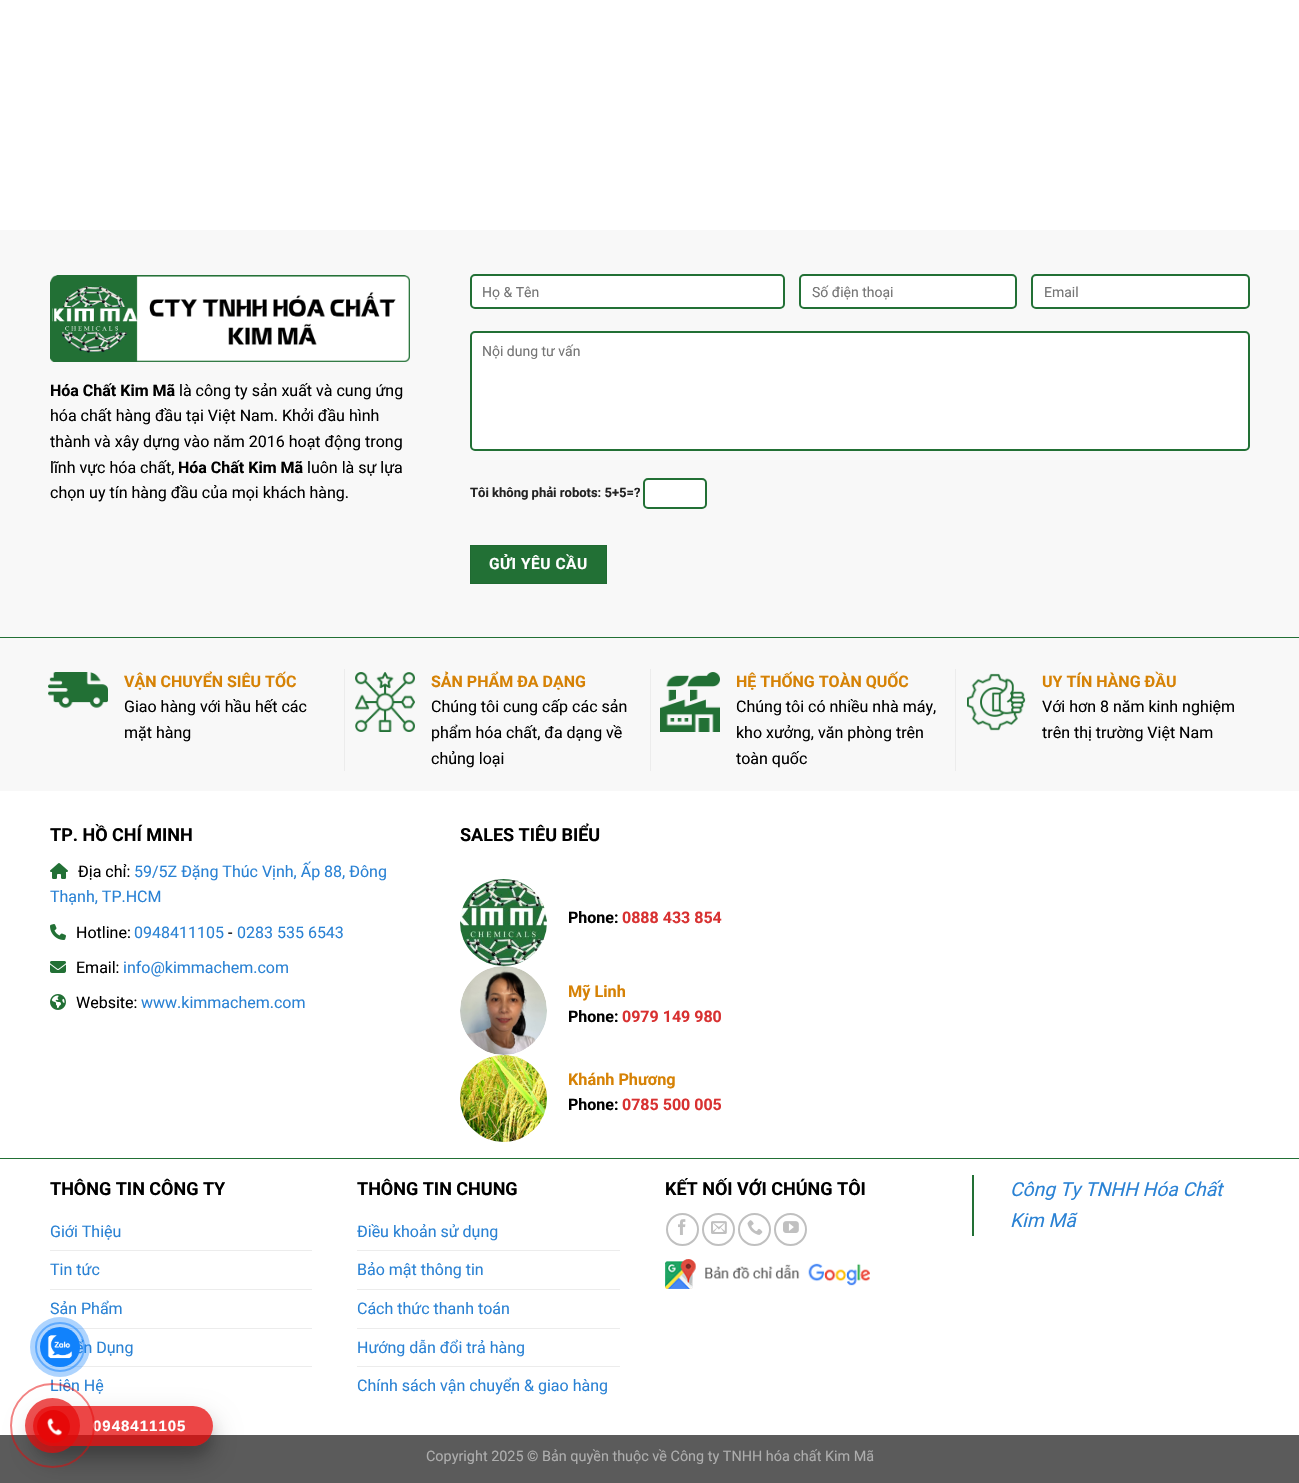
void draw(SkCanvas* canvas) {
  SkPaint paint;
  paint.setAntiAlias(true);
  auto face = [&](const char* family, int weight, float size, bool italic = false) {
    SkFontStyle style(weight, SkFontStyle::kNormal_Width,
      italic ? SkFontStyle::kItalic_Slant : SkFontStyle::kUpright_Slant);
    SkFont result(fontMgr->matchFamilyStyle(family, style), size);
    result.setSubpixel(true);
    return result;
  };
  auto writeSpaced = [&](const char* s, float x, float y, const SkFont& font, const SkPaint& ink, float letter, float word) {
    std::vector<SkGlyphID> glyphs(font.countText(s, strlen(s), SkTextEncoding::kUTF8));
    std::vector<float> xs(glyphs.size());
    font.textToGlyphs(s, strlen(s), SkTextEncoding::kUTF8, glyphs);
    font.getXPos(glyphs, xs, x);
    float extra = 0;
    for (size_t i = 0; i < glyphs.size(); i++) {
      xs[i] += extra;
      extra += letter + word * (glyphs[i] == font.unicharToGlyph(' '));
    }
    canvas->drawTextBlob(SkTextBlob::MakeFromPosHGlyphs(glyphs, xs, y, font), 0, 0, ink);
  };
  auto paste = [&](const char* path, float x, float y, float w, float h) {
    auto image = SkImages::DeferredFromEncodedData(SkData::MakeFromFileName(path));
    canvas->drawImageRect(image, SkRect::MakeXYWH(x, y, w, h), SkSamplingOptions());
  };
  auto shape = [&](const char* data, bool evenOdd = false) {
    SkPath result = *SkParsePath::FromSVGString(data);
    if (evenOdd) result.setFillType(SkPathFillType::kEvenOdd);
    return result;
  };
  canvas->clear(0xffffffff);
  paint.setColor(0xfff8f8f8);
  canvas->drawRect(SkRect::MakeXYWH(0, 230, 1299, 561), paint);
  paste("img/1.png", 50, 275, 360, 87);
  paint.setColor(0xffffffff);
  canvas->drawRoundRect(SkRect::MakeXYWH(471, 275, 313, 33), 4, 4, paint);
  paint.setStroke(true);
  paint.setStrokeWidth(2);
  paint.setColor(0xff227035);
  canvas->drawRoundRect(SkRect::MakeXYWH(471, 275, 313, 33), 4, 4, paint);
  paint.setStroke(false);
  paint.setColor(0xffffffff);
  canvas->drawRoundRect(SkRect::MakeXYWH(800, 275, 216, 33), 4, 4, paint);
  paint.setStroke(true);
  paint.setColor(0xff227035);
  canvas->drawRoundRect(SkRect::MakeXYWH(800, 275, 216, 33), 4, 4, paint);
  paint.setStroke(false);
  paint.setColor(0xffffffff);
  canvas->drawRoundRect(SkRect::MakeXYWH(1032, 275, 217, 33), 4, 4, paint);
  paint.setStroke(true);
  paint.setColor(0xff227035);
  canvas->drawRoundRect(SkRect::MakeXYWH(1032, 275, 217, 33), 4, 4, paint);
  paint.setStroke(false);
  paint.setColor(0xffffffff);
  canvas->drawRoundRect(SkRect::MakeXYWH(471, 332, 778, 118), 4, 4, paint);
  paint.setStroke(true);
  paint.setColor(0xff227035);
  canvas->drawRoundRect(SkRect::MakeXYWH(471, 332, 778, 118), 4, 4, paint);
  paint.setStroke(false);
  paint.setColor(0xffffffff);
  canvas->drawRoundRect(SkRect::MakeXYWH(644, 479, 62, 29), 4, 4, paint);
  paint.setStroke(true);
  paint.setColor(0xff227035);
  canvas->drawRoundRect(SkRect::MakeXYWH(644, 479, 62, 29), 4, 4, paint);
  paint.setStroke(false);
  canvas->drawRect(SkRect::MakeXYWH(470.5f, 545.5f, 136, 38), paint);
  paint.setStroke(true);
  paint.setStrokeWidth(1);
  paint.setColor(0xff206a32);
  canvas->drawRect(SkRect::MakeXYWH(470.5f, 545.5f, 136, 38), paint);
  paint.setStroke(false);
  paint.setColor(0xff227035);
  canvas->drawRect(SkRect::MakeXYWH(0, 637, 1299, 1), paint);
  paste("img/2.png", 48, 672, 60, 36);
  paint.setColor(0xffececec);
  canvas->drawRect(SkRect::MakeXYWH(344, 669, 1, 102), paint);
  paste("img/3.png", 355, 672, 60, 60);
  canvas->drawRect(SkRect::MakeXYWH(650, 669, 1, 102), paint);
  paste("img/4.png", 660, 672, 60, 60);
  canvas->drawRect(SkRect::MakeXYWH(955, 669, 1, 102), paint);
  paste("img/5.png", 967, 673, 59, 58);
  paste("img/6.png", 50, 863, 18, 16);
  paste("img/7.png", 50, 924, 16, 16);
  paste("img/8.png", 50, 961, 16, 12);
  paste("img/9.png", 50, 994, 16, 16);
  paste("img/10.png", 460, 879, 87, 87);
  paste("img/11.png", 460, 966, 87, 89);
  paste("img/12.png", 460, 1055, 87, 87);
  {
    const struct { float x, y, w, h; SkColor color; } items[] = {
      {0, 1158, 1299, 1, 0xff227035},
      {50, 1250, 262, 1, 0xffececec},
      {50, 1289, 262, 1, 0xffececec},
      {50, 1328, 262, 1, 0xffececec},
      {50, 1366, 262, 1, 0xffececec},
      {357, 1250, 263, 1, 0xffececec},
      {357, 1289, 263, 1, 0xffececec},
      {357, 1328, 263, 1, 0xffececec},
      {357, 1366, 263, 1, 0xffececec},
    };
    for (auto [x, y, w, h, color] : items) {
      paint.setColor(color);
      canvas->drawRect(SkRect::MakeXYWH(x, y, w, h), paint);
    }
  }
  paint.setStroke(true);
  paint.setStrokeWidth(2);
  paint.setColor(0xffc0c0c0);
  canvas->drawCircle(682.5f, 1229.5f, 15.5f, paint);
  paste("img/13.png", 678, 1219, 8, 16);
  canvas->drawCircle(718.5f, 1229.5f, 15.5f, paint);
  paste("img/14.png", 711, 1221, 16, 13);
  canvas->drawCircle(754.5f, 1229.5f, 15.5f, paint);
  paste("img/15.png", 747, 1220, 16, 15);
  canvas->drawCircle(790.5f, 1229.5f, 15.5f, paint);
  paste("img/16.png", 783, 1221, 16, 12);
  paste("img/17.png", 665, 1259, 205, 30);
  paint.setStroke(false);
  paint.setColor(0xff227035);
  canvas->drawRect(SkRect::MakeXYWH(972, 1175, 2, 61), paint);
  paint.setColor(0xff5b5b5b);
  canvas->drawRect(SkRect::MakeXYWH(0, 1435, 1299, 48), paint);
  canvas->save();
  canvas->clipPath(shape("M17 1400H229V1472H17ZM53 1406H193C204 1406 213 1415 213 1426C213 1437 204 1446 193 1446H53C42 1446 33 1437 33 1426C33 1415 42 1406 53 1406Z", true), true);
  paint.setColor(0x1a000000);
  paint.setMaskFilter(SkMaskFilter::MakeBlur(kNormal_SkBlurStyle, 5));
  canvas->drawRoundRect(SkRect::MakeXYWH(33, 1416, 180, 40), 20, 20, paint);
  paint.setMaskFilter(nullptr);
  canvas->restore();
  canvas->save();
  canvas->clipPath(shape("M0 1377H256V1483H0ZM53 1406H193C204 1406 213 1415 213 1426C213 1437 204 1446 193 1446H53C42 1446 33 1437 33 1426C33 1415 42 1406 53 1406Z", true), true);
  paint.setColor(0x40000000);
  paint.setMaskFilter(SkMaskFilter::MakeBlur(kNormal_SkBlurStyle, 14));
  canvas->drawRoundRect(SkRect::MakeXYWH(33, 1420, 180, 40), 20, 20, paint);
  paint.setMaskFilter(nullptr);
  canvas->restore();
  paint.setColor(0xbfe60808);
  canvas->drawRoundRect(SkRect::MakeXYWH(33, 1406, 180, 40), 20, 20, paint);
  auto f0 = face("Roboto", 700, 16);
  paint.setColor(0xff000000);
  canvas->drawString("Hóa Chất Kim Mã", 50, 396, f0, paint);
  auto f1 = face("Roboto", 400, 16);
  {
    const struct { const char* s; float x, y; } items[] = {
      {"là công ty sản xuất và cung ứng", 179, 396},
      {"hóa chất hàng đầu tại Việt Nam. Khởi đầu hình", 50, 421},
      {"thành và xây dựng vào năm 2016 hoạt động trong", 50, 447},
      {"lĩnh vực hóa chất,", 50, 473},
    };
    for (auto [s, x, y] : items) {
      canvas->drawString(s, x, y, f1, paint);
    }
  }
  canvas->drawString("Hóa Chất Kim Mã", 178, 473, f0, paint);
  canvas->drawString("luôn là sự lựa", 307, 473, f1, paint);
  canvas->drawString("chọn uy tín hàng đầu của mọi khách hàng.", 50, 498, f1, paint);
  auto f2 = face("Roboto", 400, 14);
  paint.setColor(0xff757575);
  {
    const struct { const char* s; float x, y; } items[] = {
      {"Họ & Tên", 482, 297},
      {"Số điện thoại", 812, 297},
      {"Email", 1044, 297},
      {"Nội dung tư vấn", 482, 356},
    };
    for (auto [s, x, y] : items) {
      canvas->drawString(s, x, y, f2, paint);
    }
  }
  auto f3 = face("Roboto", 700, 13);
  paint.setColor(0xff222222);
  canvas->drawString("Tôi không phải robots: 5+5=?", 470, 497, f3, paint);
  auto f4 = face("Roboto", 700, 15.5f);
  paint.setColor(0xffffffff);
  writeSpaced("GỬI YÊU CẦU", 489, 569, f4, paint, 0.5f, 0);
  paint.setColor(0xffd68205);
  canvas->drawString("VẬN CHUYỂN SIÊU TỐC", 124, 687, f0, paint);
  paint.setColor(0xff000000);
  canvas->drawString("Giao hàng với hầu hết các", 124, 712, f1, paint);
  canvas->drawString("mặt hàng", 124, 738, f1, paint);
  paint.setColor(0xffd68205);
  canvas->drawString("SẢN PHẨM ĐA DẠNG", 431, 687, f0, paint);
  paint.setColor(0xff000000);
  {
    const struct { const char* s; float x, y; } items[] = {
      {"Chúng tôi cung cấp các sản", 431, 712},
      {"phẩm hóa chất, đa dạng về", 431, 738},
      {"chủng loại", 431, 764},
    };
    for (auto [s, x, y] : items) {
      canvas->drawString(s, x, y, f1, paint);
    }
  }
  paint.setColor(0xffd68205);
  canvas->drawString("HỆ THỐNG TOÀN QUỐC", 736, 687, f0, paint);
  paint.setColor(0xff000000);
  {
    const struct { const char* s; float x, y; } items[] = {
      {"Chúng tôi có nhiều nhà máy,", 736, 712},
      {"kho xưởng, văn phòng trên", 736, 738},
      {"toàn quốc", 736, 764},
    };
    for (auto [s, x, y] : items) {
      canvas->drawString(s, x, y, f1, paint);
    }
  }
  paint.setColor(0xffd68205);
  canvas->drawString("UY TÍN HÀNG ĐẦU", 1042, 687, f0, paint);
  paint.setColor(0xff000000);
  canvas->drawString("Với hơn 8 năm kinh nghiệm", 1042, 712, f1, paint);
  canvas->drawString("trên thị trường Việt Nam", 1042, 738, f1, paint);
  auto f5 = face("Roboto", 700, 18);
  canvas->drawString("TP. HỒ CHÍ MINH", 50, 841, f5, paint);
  canvas->drawString("Địa chỉ:", 78, 877, f1, paint);
  paint.setColor(0xff2a82d4);
  canvas->drawString("59/5Z Đặng Thúc Vịnh, Ấp 88, Đông", 134, 877, f1, paint);
  canvas->drawString("Thạnh, TP.HCM", 50, 902, f1, paint);
  paint.setColor(0xff000000);
  canvas->drawString("Hotline:", 76, 938, f1, paint);
  paint.setColor(0xff2a82d4);
  canvas->drawString("0948411105", 134, 938, f1, paint);
  paint.setColor(0xff000000);
  canvas->drawString("-", 228, 938, f1, paint);
  paint.setColor(0xff2a82d4);
  canvas->drawString("0283 535 6543", 237, 938, f1, paint);
  paint.setColor(0xff000000);
  canvas->drawString("Email:", 76, 973, f1, paint);
  paint.setColor(0xff2a82d4);
  canvas->drawString("info@kimmachem.com", 123, 973, f1, paint);
  paint.setColor(0xff000000);
  canvas->drawString("Website:", 76, 1008, f1, paint);
  paint.setColor(0xff2a82d4);
  canvas->drawString("www.kimmachem.com", 141, 1008, f1, paint);
  paint.setColor(0xff000000);
  canvas->drawString("SALES TIÊU BIỂU", 460, 841, f5, paint);
  canvas->drawString("Phone:", 568, 923, f0, paint);
  paint.setColor(0xffd83131);
  canvas->drawString("0888 433 854", 622, 923, f0, paint);
  auto f6 = face("Roboto", 700, 16.25f);
  paint.setColor(0xffd68205);
  canvas->drawString("Mỹ Linh", 568, 997, f6, paint);
  paint.setColor(0xff000000);
  canvas->drawString("Phone:", 568, 1022, f0, paint);
  paint.setColor(0xffd83131);
  canvas->drawString("0979 149 980", 622, 1022, f0, paint);
  paint.setColor(0xffd68205);
  canvas->drawString("Khánh Phương", 568, 1085, f6, paint);
  paint.setColor(0xff000000);
  canvas->drawString("Phone:", 568, 1110, f0, paint);
  paint.setColor(0xffd83131);
  canvas->drawString("0785 500 005", 622, 1110, f0, paint);
  paint.setColor(0xff000000);
  canvas->drawString("THÔNG TIN CÔNG TY", 50, 1195, f5, paint);
  paint.setColor(0xff2a82d4);
  {
    const struct { const char* s; float x, y; } items[] = {
      {"Giới Thiệu", 50, 1237},
      {"Tin tức", 50, 1275},
      {"Sản Phẩm", 50, 1314},
      {"ển Dụng", 75, 1353},
      {"Liên Hệ", 50, 1391},
    };
    for (auto [s, x, y] : items) {
      canvas->drawString(s, x, y, f1, paint);
    }
  }
  paint.setColor(0xff000000);
  canvas->drawString("THÔNG TIN CHUNG", 357, 1195, f5, paint);
  paint.setColor(0xff2a82d4);
  {
    const struct { const char* s; float x, y; } items[] = {
      {"Điều khoản sử dụng", 357, 1237},
      {"Bảo mật thông tin", 357, 1275},
      {"Cách thức thanh toán", 357, 1314},
      {"Hướng dẫn đổi trả hàng", 357, 1353},
      {"Chính sách vận chuyển & giao hàng", 357, 1391},
    };
    for (auto [s, x, y] : items) {
      canvas->drawString(s, x, y, f1, paint);
    }
  }
  paint.setColor(0xff000000);
  canvas->drawString("KẾT NỐI VỚI CHÚNG TÔI", 665, 1195, f5, paint);
  auto f7 = face("Roboto", 400, 19.25f, true);
  paint.setColor(0xff2a82d4);
  canvas->drawString("Công Ty TNHH Hóa Chất", 1010, 1196, f7, paint);
  canvas->drawString("Kim Mã", 1010, 1227, f7, paint);
  auto f8 = face("Roboto", 400, 14.4f);
  paint.setColor(0xffadadad);
  canvas->drawString("Copyright 2025 © Bản quyền thuộc về Công ty TNHH hóa chất Kim Mã", 426, 1461, f8, paint);
  paint.setStroke(true);
  paint.setColor(0x801182fc);
  canvas->drawCircle(60, 1347, 24, paint);
  paint.setStroke(false);
  paint.setColor(0x571182fc);
  canvas->drawCircle(60, 1347, 30, paint);
  paint.setColor(0xff1182fc);
  canvas->drawCircle(60, 1347, 20, paint);
  paste("img/18.png", 47, 1335, 25, 24);
  auto f9 = face("Liberation Sans", 700, 15);
  paint.setColor(0xffffffff);
  writeSpaced("0948411105", 93, 1431, f9, paint, 1, 0);
  paint.setStroke(true);
  paint.setColor(0x80e60808);
  canvas->drawCircle(52.5f, 1425.5f, 41.5f, paint);
  paint.setStroke(false);
  paint.setColor(0xb3e60808);
  canvas->drawCircle(52.5f, 1425.5f, 27.5f, paint);
  paint.setColor(0xffe60808);
  canvas->drawCircle(53.5f, 1426.5f, 16.5f, paint);
  paste("img/19.png", 47, 1418, 16, 18);
}
